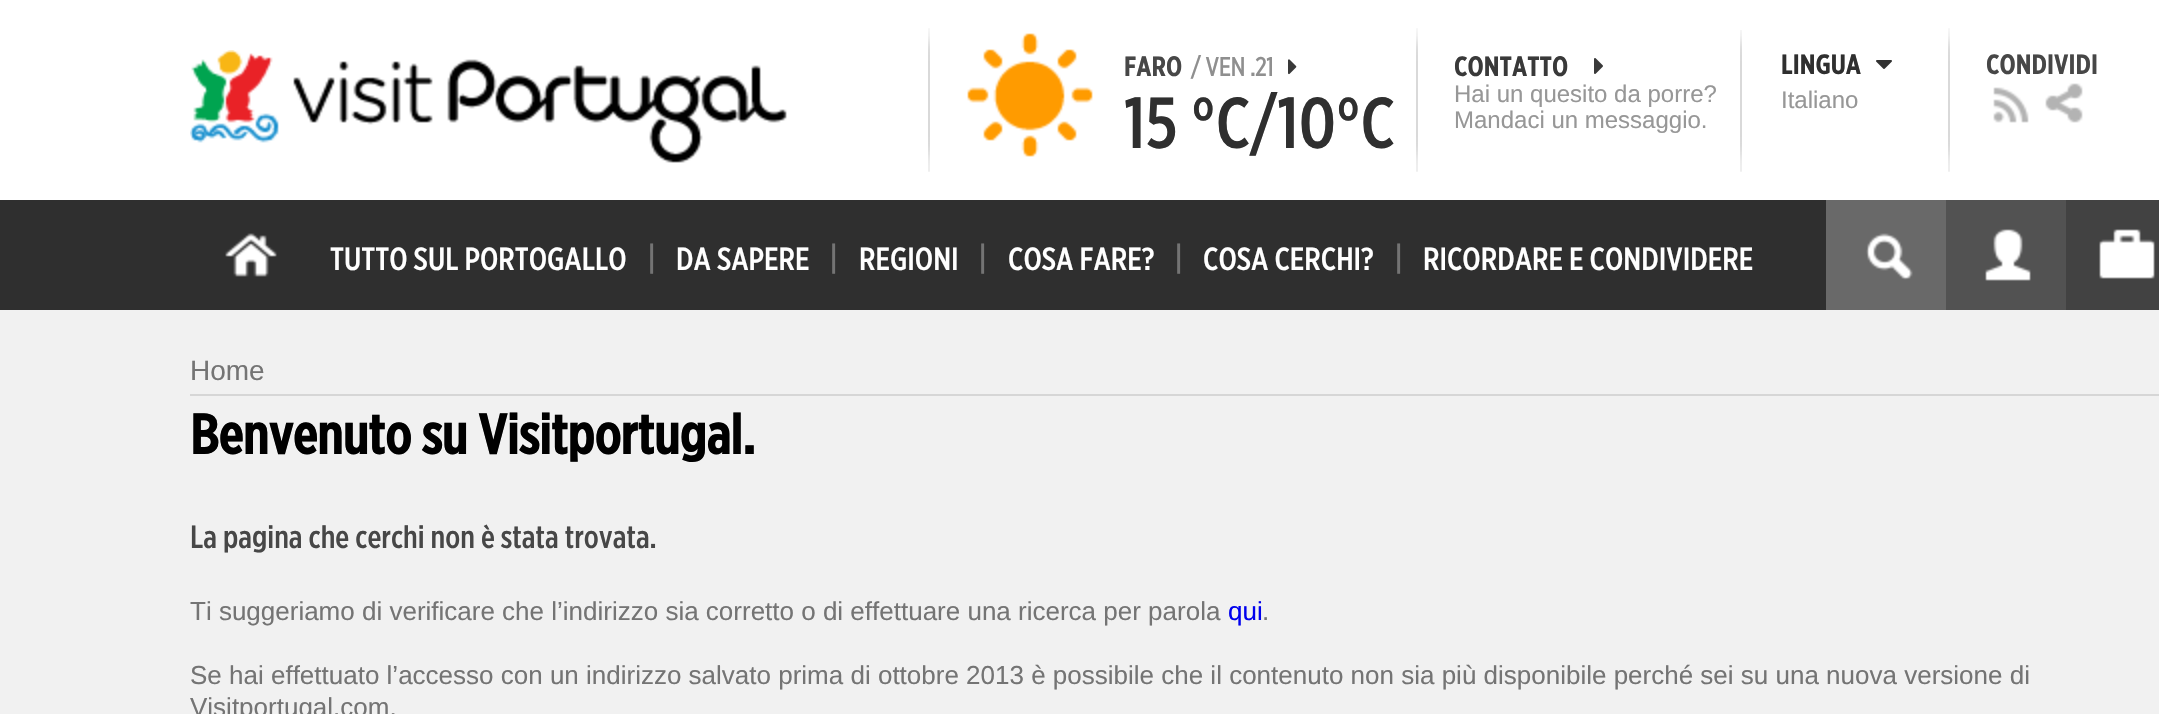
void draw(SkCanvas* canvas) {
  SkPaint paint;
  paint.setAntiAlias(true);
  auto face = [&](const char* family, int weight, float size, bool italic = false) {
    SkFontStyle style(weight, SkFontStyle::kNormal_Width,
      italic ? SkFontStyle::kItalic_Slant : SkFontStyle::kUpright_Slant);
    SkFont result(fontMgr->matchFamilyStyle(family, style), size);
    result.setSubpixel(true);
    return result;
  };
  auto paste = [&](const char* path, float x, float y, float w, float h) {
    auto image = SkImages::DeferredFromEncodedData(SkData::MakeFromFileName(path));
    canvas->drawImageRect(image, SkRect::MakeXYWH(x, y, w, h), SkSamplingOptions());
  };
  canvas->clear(0xfff1f1f1);
  paint.setColor(0xffffffff);
  canvas->drawRect(SkRect::MakeXYWH(0, 0, 2159, 200), paint);
  paste("img/1.png", 190, 50, 597, 113);
  paste("img/2.png", 928, 28, 2, 144);
  paste("img/3.png", 967, 33, 126, 124);
  paste("img/4.png", 1288, 59, 9, 16);
  paste("img/2.png", 1416, 28, 2, 144);
  paste("img/5.png", 1594, 58, 9, 16);
  paste("img/6.png", 1740, 30, 2, 142);
  paste("img/7.png", 1876, 60, 16, 9);
  paste("img/2.png", 1948, 28, 2, 144);
  paste("img/8.png", 1993, 87, 36, 36);
  paste("img/9.png", 2045, 83, 38, 40);
  paint.setColor(0xff2f2f2f);
  canvas->drawRect(SkRect::MakeXYWH(0, 200, 1826, 110), paint);
  paste("img/10.png", 225, 233, 52, 44);
  paint.setColor(0xff696969);
  canvas->drawRect(SkRect::MakeXYWH(1826, 200, 120, 110), paint);
  paste("img/11.png", 1866, 233, 47, 47);
  paint.setColor(0xff525252);
  canvas->drawRect(SkRect::MakeXYWH(1946, 200, 120, 110), paint);
  paste("img/12.png", 1985, 229, 46, 52);
  paint.setColor(0xff424242);
  canvas->drawRect(SkRect::MakeXYWH(2066, 200, 93, 110), paint);
  paste("img/13.png", 2099, 229, 56, 50);
  paint.setColor(0xffd6d6d6);
  canvas->drawRect(SkRect::MakeXYWH(190, 394, 1969, 2), paint);
  auto f0 = face("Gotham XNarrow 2", 700, 28);
  paint.setColor(0xff474747);
  canvas->drawString("FARO", 1124, 76, f0, paint);
  auto f1 = face("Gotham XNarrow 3", 700, 26);
  paint.setColor(0xff8f8f8f);
  canvas->drawString("/ VEN .21", 1191, 76, f1, paint);
  auto f2 = face("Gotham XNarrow", 500, 72);
  paint.setColor(0xff2f2f2f);
  canvas->drawString("15 °C/10°C", 1124, 148, f2, paint);
  paint.setColor(0xff393939);
  canvas->drawString("CONTATTO", 1454, 76, f0, paint);
  auto f3 = face("Liberation Sans", 400, 24);
  paint.setColor(0xff979797);
  canvas->drawString("Hai un quesito da porre?", 1454, 102, f3, paint);
  canvas->drawString("Mandaci un messaggio.", 1454, 128, f3, paint);
  paint.setColor(0xff2f2f2f);
  canvas->drawString("LINGUA", 1781, 74, f0, paint);
  paint.setColor(0xff979797);
  canvas->drawString("Italiano", 1781, 108, f3, paint);
  paint.setColor(0xff474747);
  canvas->drawString("CONDIVIDI", 1986, 74, f0, paint);
  auto f4 = face("Gotham XNarrow", 500, 32);
  paint.setColor(0xffffffff);
  canvas->drawString("TUTTO SUL PORTOGALLO", 330, 270, f4, paint);
  auto f5 = face("Gotham XNarrow", 500, 34);
  paint.setColor(0xff747474);
  canvas->drawString("|", 647, 270, f5, paint);
  paint.setColor(0xffffffff);
  canvas->drawString("DA SAPERE", 676, 270, f4, paint);
  paint.setColor(0xff747474);
  canvas->drawString("|", 829, 270, f5, paint);
  paint.setColor(0xffffffff);
  canvas->drawString("REGIONI", 859, 270, f4, paint);
  paint.setColor(0xff747474);
  canvas->drawString("|", 978, 270, f5, paint);
  paint.setColor(0xffffffff);
  canvas->drawString("COSA FARE?", 1008, 270, f4, paint);
  paint.setColor(0xff747474);
  canvas->drawString("|", 1174, 270, f5, paint);
  paint.setColor(0xffffffff);
  canvas->drawString("COSA CERCHI?", 1203, 270, f4, paint);
  paint.setColor(0xff747474);
  canvas->drawString("|", 1394, 270, f5, paint);
  paint.setColor(0xffffffff);
  canvas->drawString("RICORDARE E CONDIVIDERE", 1423, 270, f4, paint);
  auto f6 = face("Liberation Sans", 400, 28);
  paint.setColor(0xff747474);
  canvas->drawString("Home", 190, 380, f6, paint);
  auto f7 = face("Gotham XNarrow", 700, 56);
  paint.setColor(0xff000000);
  canvas->drawString("Benvenuto su Visitportugal.", 190, 454, f7, paint);
  paint.setColor(0xff474747);
  canvas->drawString("La pagina che cerchi non è stata trovata.", 190, 548, f4, paint);
  auto f8 = face("Liberation Sans", 400, 26);
  paint.setColor(0xff747474);
  canvas->drawString("Ti suggeriamo di verificare che l’indirizzo sia corretto o di effettuare una ricerca per parola", 190, 620, f8, paint);
  paint.setColor(0xff0000ee);
  canvas->drawString("qui", 1228, 620, f8, paint);
  paint.setColor(0xff747474);
  {
    const struct { const char* s; float x, y; } items[] = {
      {".", 1262, 620},
      {"Se hai effettuato l’accesso con un indirizzo salvato prima di ottobre 2013 è possibile che il contenuto non sia più disponibile perché sei su una nuova versione di", 190, 684},
      {"Visitportugal.com.", 190, 716},
    };
    for (auto [s, x, y] : items) {
      canvas->drawString(s, x, y, f8, paint);
    }
  }
}
